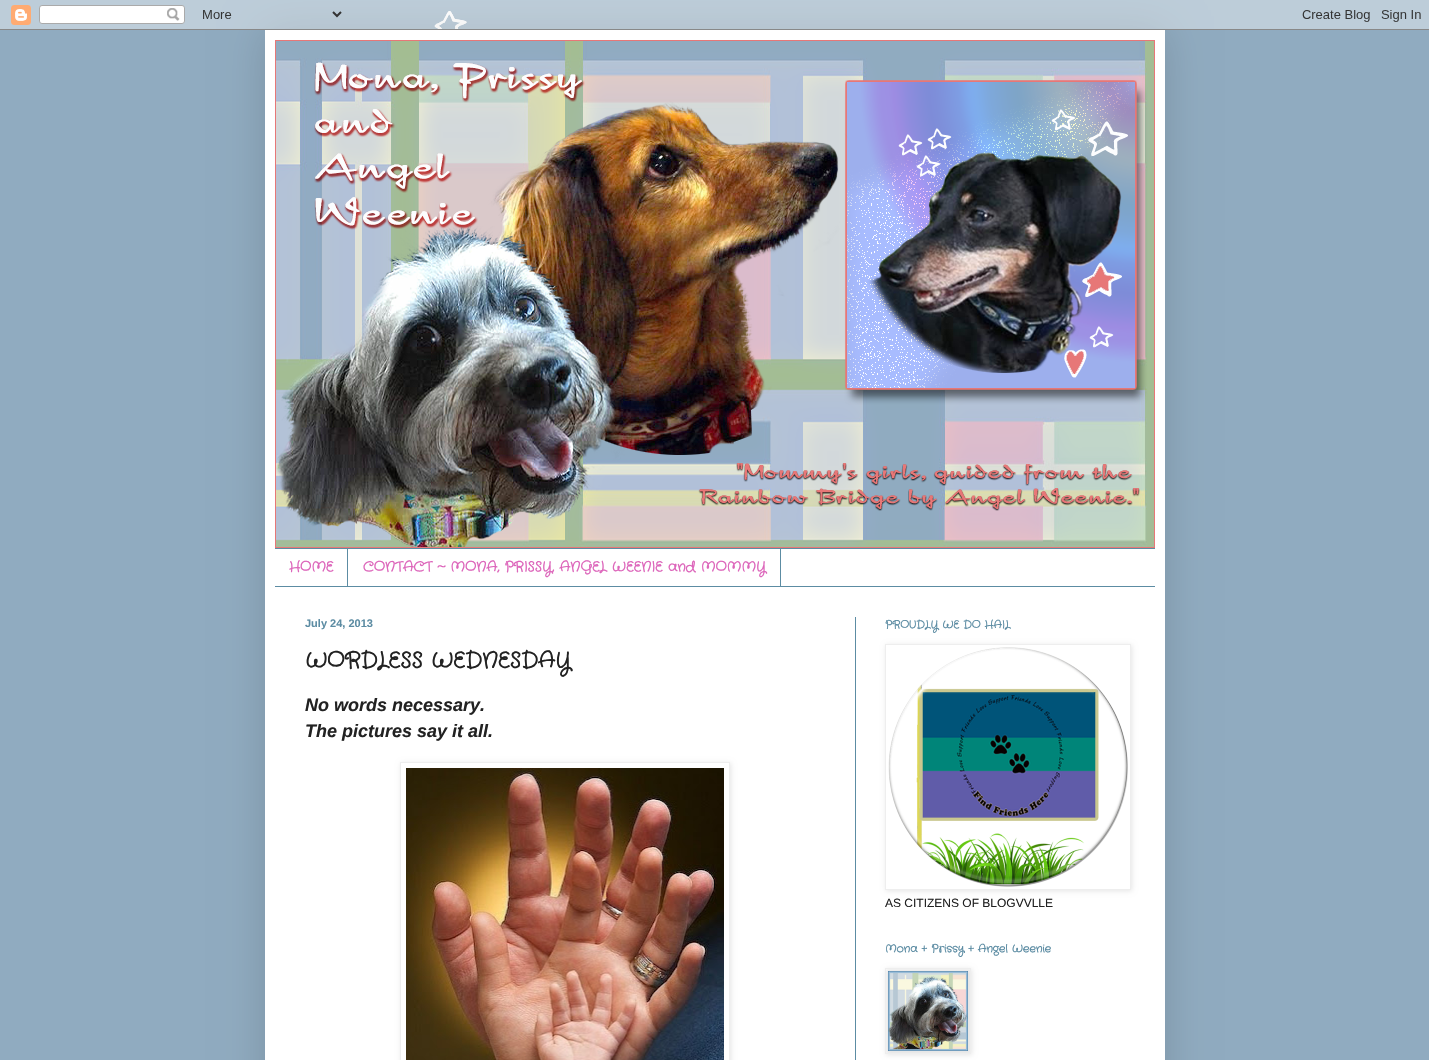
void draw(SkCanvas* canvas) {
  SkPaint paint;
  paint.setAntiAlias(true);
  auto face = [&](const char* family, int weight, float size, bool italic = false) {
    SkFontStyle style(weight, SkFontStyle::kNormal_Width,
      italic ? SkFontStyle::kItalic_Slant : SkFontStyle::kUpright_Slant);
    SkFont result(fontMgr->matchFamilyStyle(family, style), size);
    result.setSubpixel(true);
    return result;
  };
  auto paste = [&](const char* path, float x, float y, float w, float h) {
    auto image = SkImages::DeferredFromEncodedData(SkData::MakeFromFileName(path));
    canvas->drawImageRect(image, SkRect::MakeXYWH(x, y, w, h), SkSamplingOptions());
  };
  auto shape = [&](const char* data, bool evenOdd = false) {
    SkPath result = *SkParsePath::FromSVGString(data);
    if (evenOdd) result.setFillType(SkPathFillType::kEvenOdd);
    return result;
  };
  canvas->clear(0xffffffff);
  paste("img/1.png", 0, 0, 1429, 1060);
  paint.setColor(0x26000000);
  paint.setMaskFilter(SkMaskFilter::MakeBlur(kNormal_SkBlurStyle, 20));
  canvas->drawRect(SkRect::MakeXYWH(265, 30, 900, 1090), paint);
  paint.setMaskFilter(nullptr);
  paste("img/2.png", 0, 0, 1429, 30);
  paint.setColor(0xffffffff);
  canvas->drawRect(SkRect::MakeXYWH(265, 30, 900, 1030), paint);
  paste("img/3.png", 275, 40, 880, 508);
  {
    const struct { float x, y, w, h; SkColor color; } items[] = {
      {275, 548, 880, 1, 0xff5c8ca3},
      {275, 586, 880, 1, 0xff5c8ca3},
      {347, 549, 1, 37, 0xff5c8ca3},
      {780, 549, 1, 37, 0xff5c8ca3},
      {855, 617, 1, 443, 0xff5c8ca3},
    };
    for (auto [x, y, w, h, color] : items) {
      paint.setColor(color);
      canvas->drawRect(SkRect::MakeXYWH(x, y, w, h), paint);
    }
  }
  canvas->save();
  canvas->clipPath(shape("M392 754H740V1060H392ZM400 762H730V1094H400Z", true), true);
  paint.setColor(0x1a000000);
  paint.setMaskFilter(SkMaskFilter::MakeBlur(kNormal_SkBlurStyle, 2.5f));
  canvas->drawRect(SkRect::MakeXYWH(401, 763, 330, 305), paint);
  paint.setMaskFilter(nullptr);
  canvas->restore();
  paint.setStroke(true);
  paint.setStrokeWidth(1);
  paint.setColor(0xffeeeeee);
  canvas->drawRect(SkRect::MakeXYWH(400.5f, 762.5f, 329, 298), paint);
  paste("img/4.png", 406, 768, 318, 292);
  canvas->save();
  canvas->clipPath(shape("M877 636H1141V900H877ZM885 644H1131V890H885Z", true), true);
  paint.setStroke(false);
  paint.setColor(0x1a000000);
  paint.setMaskFilter(SkMaskFilter::MakeBlur(kNormal_SkBlurStyle, 2.5f));
  canvas->drawRect(SkRect::MakeXYWH(886, 645, 246, 246), paint);
  paint.setMaskFilter(nullptr);
  canvas->restore();
  paint.setStroke(true);
  paint.setColor(0xffeeeeee);
  canvas->drawRect(SkRect::MakeXYWH(885.5f, 644.5f, 245, 245), paint);
  paste("img/5.png", 888, 647, 240, 240);
  paint.setStroke(false);
  paint.setColor(0x1a000000);
  paint.setMaskFilter(SkMaskFilter::MakeBlur(kNormal_SkBlurStyle, 2.5f));
  canvas->drawRect(SkRect::MakeXYWH(886, 969, 86, 86), paint);
  paint.setMaskFilter(nullptr);
  paint.setStroke(true);
  paint.setColor(0xffeeeeee);
  canvas->drawRect(SkRect::MakeXYWH(885.5f, 968.5f, 85, 85), paint);
  paste("img/6.png", 888, 971, 80, 80);
  auto f0 = face("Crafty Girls", 700, 14);
  paint.setStroke(false);
  paint.setColor(0xffdd66bb);
  canvas->drawString("HOME", 289, 571, f0, paint);
  canvas->drawString("CONTACT ~ MONA, PRISSY, ANGEL WEENIE and MOMMY", 363, 571, f0, paint);
  auto f1 = face("Liberation Sans", 700, 11);
  paint.setColor(0xff5c8ca3);
  canvas->drawString("July 24, 2013", 305, 627, f1, paint);
  auto f2 = face("Crafty Girls", 700, 22);
  paint.setColor(0xff222222);
  canvas->drawString("WORDLESS WEDNESDAY", 305, 667, f2, paint);
  auto f3 = face("Liberation Sans", 700, 18, true);
  canvas->drawString("No words necessary.", 305, 711, f3, paint);
  canvas->drawString("The pictures say it all.", 305, 737, f3, paint);
  auto f4 = face("Crafty Girls", 700, 11);
  paint.setColor(0xff5c8ca3);
  canvas->drawString("PROUDLY WE DO HAIL", 885, 628, f4, paint);
  auto f5 = face("Liberation Sans", 400, 12);
  paint.setColor(0xff222222);
  canvas->drawString("AS CITIZENS OF BLOGVVLLE", 885, 907, f5, paint);
  paint.setColor(0xff5c8ca3);
  canvas->drawString("Mona + Prissy + Angel Weenie", 885, 952, f4, paint);
}
